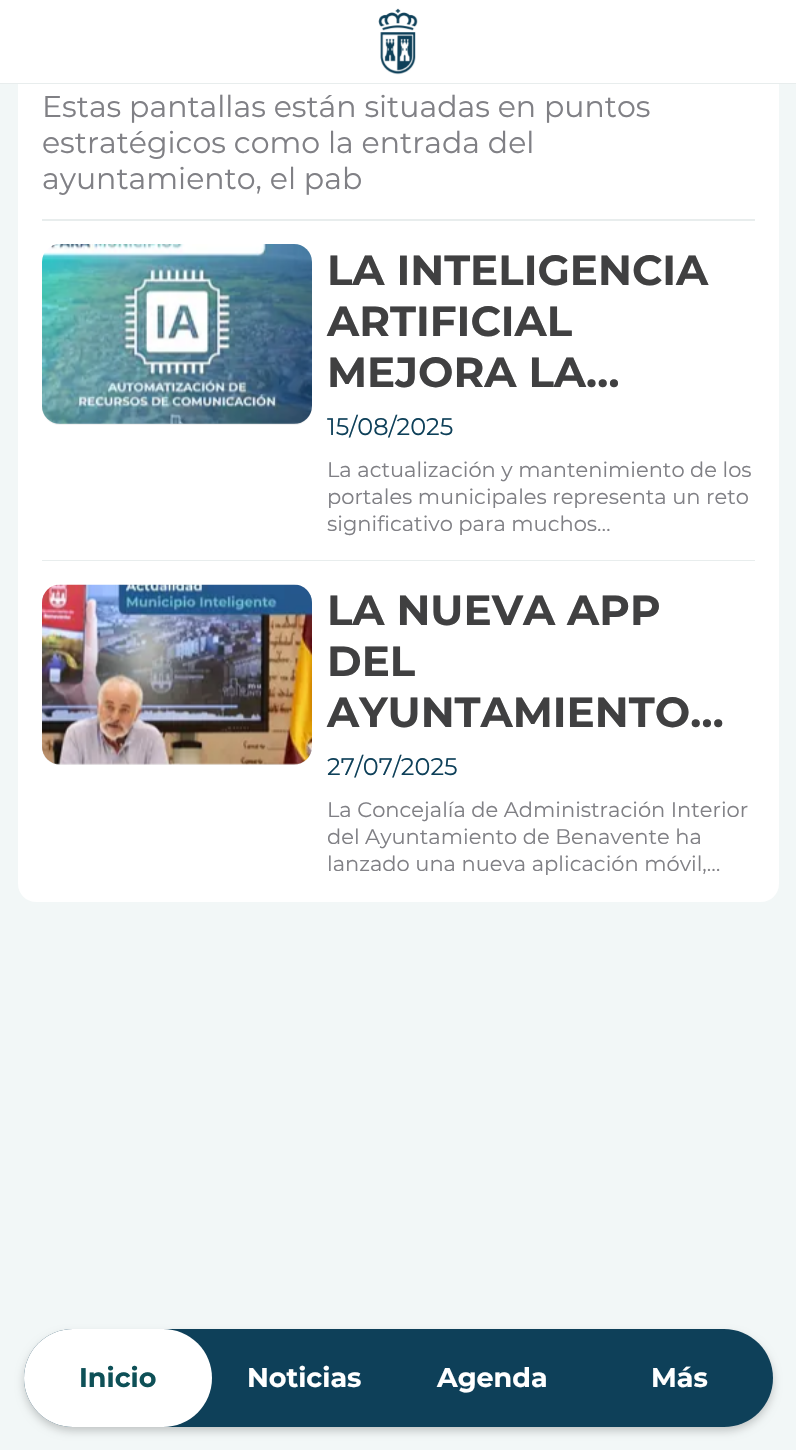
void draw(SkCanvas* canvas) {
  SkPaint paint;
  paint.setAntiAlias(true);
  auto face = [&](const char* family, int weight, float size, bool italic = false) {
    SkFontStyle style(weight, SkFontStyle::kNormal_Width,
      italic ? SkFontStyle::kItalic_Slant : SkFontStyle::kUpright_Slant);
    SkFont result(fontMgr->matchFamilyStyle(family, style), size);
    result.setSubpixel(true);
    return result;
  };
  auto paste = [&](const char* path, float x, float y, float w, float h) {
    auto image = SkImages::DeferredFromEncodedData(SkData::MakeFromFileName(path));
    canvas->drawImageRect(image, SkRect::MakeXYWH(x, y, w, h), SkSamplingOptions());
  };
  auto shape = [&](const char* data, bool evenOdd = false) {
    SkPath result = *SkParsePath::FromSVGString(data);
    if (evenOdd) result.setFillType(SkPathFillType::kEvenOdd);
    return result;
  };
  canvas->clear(0xfff2f7f7);
  paint.setColor(0xffffffff);
  canvas->drawRect(SkRect::MakeXYWH(18, 84, 761, 477), paint);
  paint.setColor(0xffe8eded);
  canvas->drawRect(SkRect::MakeXYWH(42, 219, 713, 2), paint);
  paint.setColor(0xfff1f1f1);
  canvas->drawRoundRect(SkRect::MakeXYWH(42, 245, 270, 180), 18, 18, paint);
  paste("img/1.png", 42, 244, 270, 180);
  paint.setColor(0xffe8eded);
  canvas->drawRect(SkRect::MakeXYWH(42, 560, 713, 1), paint);
  paint.setColor(0xffffffff);
  canvas->drawPath(shape("M18 561H779V884C779 894 771 902 761 902H36C26 902 18 894 18 884Z"), paint);
  paint.setColor(0xfff1f1f1);
  canvas->drawRoundRect(SkRect::MakeXYWH(42, 585, 270, 180), 18, 18, paint);
  paste("img/2.png", 42, 584, 270, 181);
  paint.setColor(0xffffffff);
  canvas->drawRect(SkRect::MakeXYWH(0, 0, 796, 83), paint);
  paint.setColor(0xffe8eded);
  canvas->drawRect(SkRect::MakeXYWH(0, 83, 796, 1), paint);
  paste("img/3.png", 378, 8, 40, 67);
  paint.setColor(0x33000000);
  paint.setMaskFilter(SkMaskFilter::MakeBlur(kNormal_SkBlurStyle, 4.5f));
  canvas->drawRoundRect(SkRect::MakeXYWH(24, 1334, 749, 97), 48.5f, 48.5f, paint);
  paint.setMaskFilter(nullptr);
  paint.setColor(0xff0e4059);
  canvas->drawRoundRect(SkRect::MakeXYWH(24, 1329, 749, 98), 49, 49, paint);
  paint.setColor(0xffffffff);
  canvas->drawRoundRect(SkRect::MakeXYWH(24, 1329, 188, 98), 49, 49, paint);
  auto f0 = face("Montserrat", 400, 30);
  paint.setColor(0xff808085);
  {
    const struct { const char* s; float x, y; } items[] = {
      {"Estas pantallas están situadas en puntos", 42, 117},
      {"estratégicos como la entrada del", 42, 153},
      {"ayuntamiento, el pab", 42, 189},
    };
    for (auto [s, x, y] : items) {
      canvas->drawString(s, x, y, f0, paint);
    }
  }
  auto f1 = face("Montserrat", 700, 42);
  paint.setColor(0xff404041);
  {
    const struct { const char* s; float x, y; } items[] = {
      {"LA INTELIGENCIA", 327, 285},
      {"ARTIFICIAL", 327, 336},
      {"MEJORA LA…", 327, 387},
    };
    for (auto [s, x, y] : items) {
      canvas->drawString(s, x, y, f1, paint);
    }
  }
  auto f2 = face("Montserrat", 400, 24);
  paint.setColor(0xff0e4059);
  canvas->drawString("15/08/2025", 327, 435, f2, paint);
  auto f3 = face("Montserrat", 400, 21);
  paint.setColor(0xff808085);
  {
    const struct { const char* s; float x, y; } items[] = {
      {"La actualización y mantenimiento de los", 327, 477},
      {"portales municipales representa un reto", 327, 504},
      {"significativo para muchos…", 327, 531},
    };
    for (auto [s, x, y] : items) {
      canvas->drawString(s, x, y, f3, paint);
    }
  }
  paint.setColor(0xff404041);
  {
    const struct { const char* s; float x, y; } items[] = {
      {"LA NUEVA APP", 327, 625},
      {"DEL", 327, 676},
      {"AYUNTAMIENTO…", 327, 727},
    };
    for (auto [s, x, y] : items) {
      canvas->drawString(s, x, y, f1, paint);
    }
  }
  paint.setColor(0xff0e4059);
  canvas->drawString("27/07/2025", 327, 775, f2, paint);
  paint.setColor(0xff808085);
  {
    const struct { const char* s; float x, y; } items[] = {
      {"La Concejalía de Administración Interior", 327, 817},
      {"del Ayuntamiento de Benavente ha", 327, 844},
      {"lanzado una nueva aplicación móvil,…", 327, 871},
    };
    for (auto [s, x, y] : items) {
      canvas->drawString(s, x, y, f3, paint);
    }
  }
  auto f4 = face("Montserrat", 700, 27);
  paint.setColor(0xff0e5057);
  canvas->drawString("Inicio", 79, 1387, f4, paint);
  paint.setColor(0xffffffff);
  {
    const struct { const char* s; float x, y; } items[] = {
      {"Noticias", 247, 1387},
      {"Agenda", 437, 1387},
      {"Más", 651, 1387},
    };
    for (auto [s, x, y] : items) {
      canvas->drawString(s, x, y, f4, paint);
    }
  }
}
